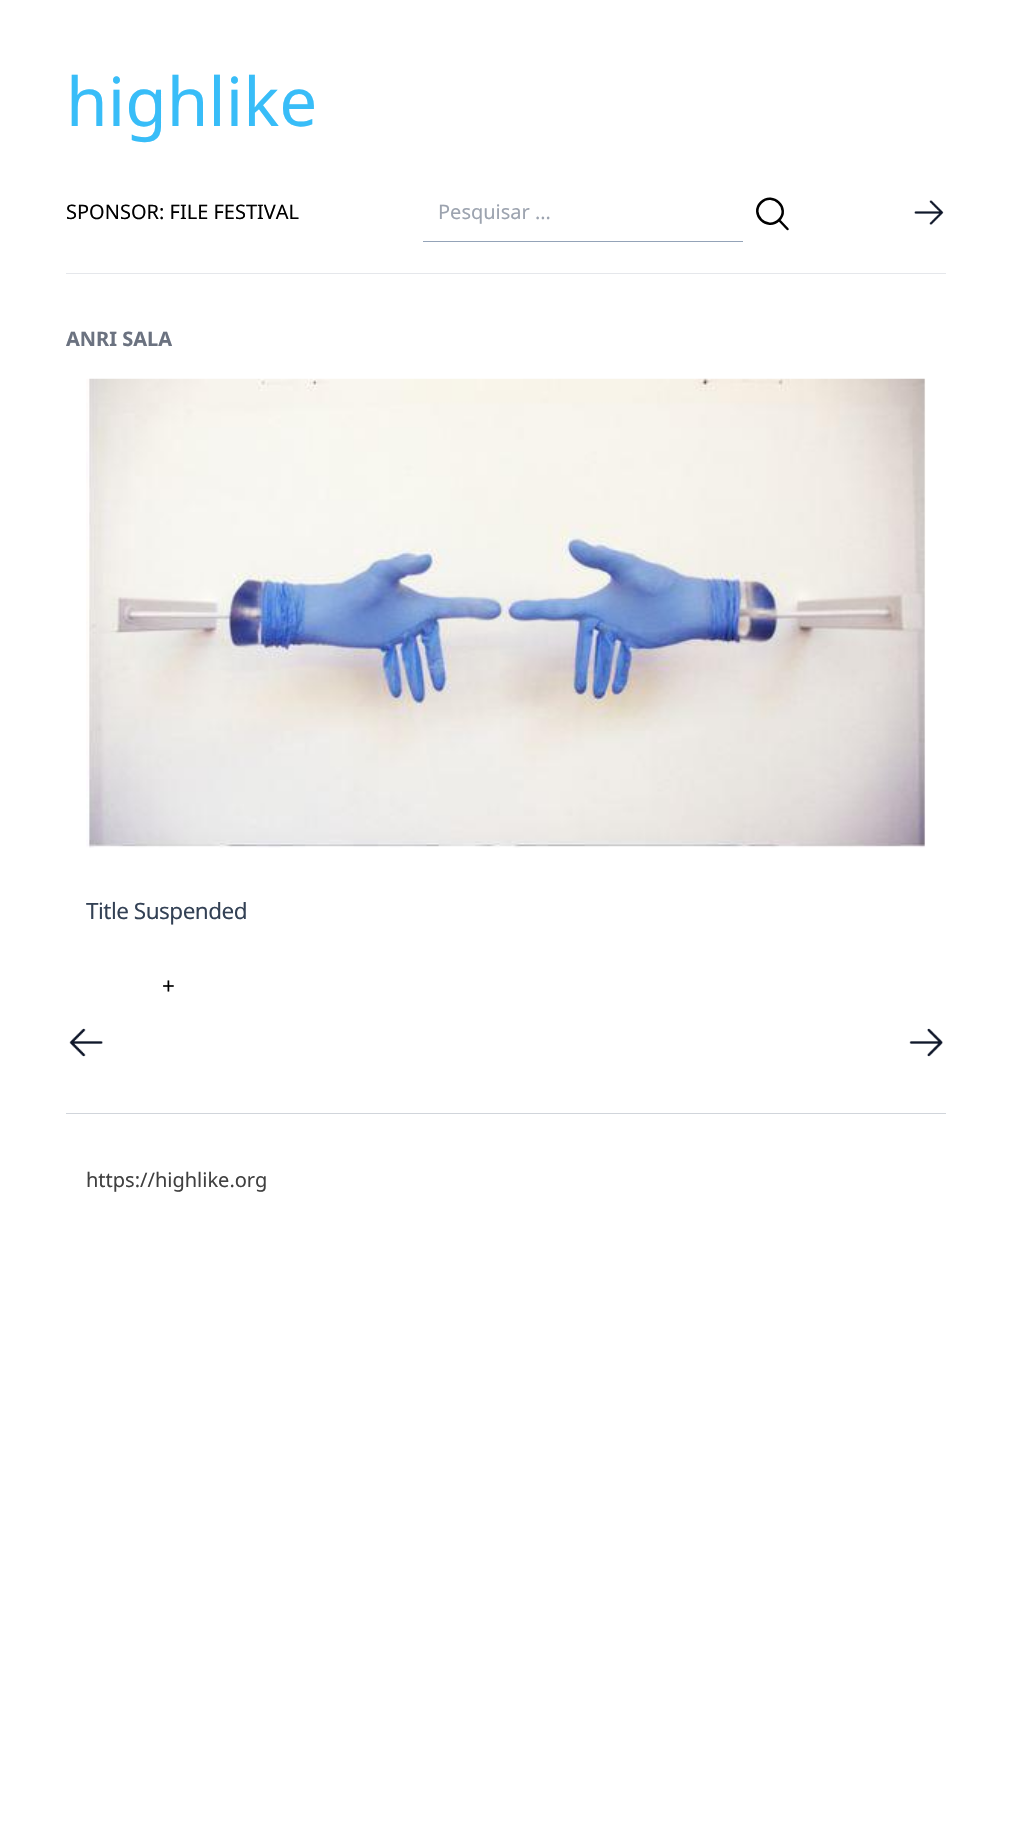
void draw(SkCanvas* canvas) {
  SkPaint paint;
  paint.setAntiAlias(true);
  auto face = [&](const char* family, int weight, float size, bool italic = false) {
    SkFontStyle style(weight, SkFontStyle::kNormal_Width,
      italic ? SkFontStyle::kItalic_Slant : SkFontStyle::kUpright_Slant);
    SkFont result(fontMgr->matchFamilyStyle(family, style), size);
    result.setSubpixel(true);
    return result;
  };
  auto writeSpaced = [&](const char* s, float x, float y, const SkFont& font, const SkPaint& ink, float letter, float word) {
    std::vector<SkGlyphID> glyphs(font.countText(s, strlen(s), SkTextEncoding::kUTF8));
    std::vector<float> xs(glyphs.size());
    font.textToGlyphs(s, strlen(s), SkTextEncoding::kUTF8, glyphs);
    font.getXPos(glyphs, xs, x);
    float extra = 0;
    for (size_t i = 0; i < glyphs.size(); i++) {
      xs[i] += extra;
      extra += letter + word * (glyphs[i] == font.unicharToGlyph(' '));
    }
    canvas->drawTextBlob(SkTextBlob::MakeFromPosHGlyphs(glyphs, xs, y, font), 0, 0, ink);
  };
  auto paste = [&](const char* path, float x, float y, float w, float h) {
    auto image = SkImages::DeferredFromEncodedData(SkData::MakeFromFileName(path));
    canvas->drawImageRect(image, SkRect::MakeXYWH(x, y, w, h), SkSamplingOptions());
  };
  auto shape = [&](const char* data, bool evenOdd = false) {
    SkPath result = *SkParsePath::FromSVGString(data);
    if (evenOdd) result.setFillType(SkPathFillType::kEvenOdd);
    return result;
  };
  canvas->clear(0xffffffff);
  paint.setColor(0xffe5e7eb);
  canvas->drawRect(SkRect::MakeXYWH(66, 273, 880, 1), paint);
  paint.setColor(0xff94a3b8);
  canvas->drawRect(SkRect::MakeXYWH(423, 241, 320, 1), paint);
  paint.setStroke(true);
  paint.setStrokeWidth(2.5f);
  paint.setStrokeCap(SkPaint::kRound_Cap);
  paint.setStrokeJoin(SkPaint::kRound_Join);
  paint.setColor(0xff000000);
  canvas->drawPath(shape("M787.5 229L779 220M779 220C790.5 208.5 773 191 761 202.5C749.5 214 767 231.5 779 220Z"), paint);
  paste("img/1.png", 914, 200, 30, 25);
  paste("img/2.png", 86, 378, 840, 470);
  paste("img/3.png", 69, 1028, 34, 29);
  paste("img/4.png", 909, 1028, 34, 29);
  paint.setStroke(false);
  paint.setColor(0xffd1d5db);
  canvas->drawRect(SkRect::MakeXYWH(66, 1113, 880, 1), paint);
  auto f0 = face("Noto Sans", 400, 67.5f);
  paint.setColor(0xff38bdf8);
  canvas->drawString("highlike", 66, 126, f0, paint);
  auto f1 = face("Noto Sans", 400, 20);
  paint.setColor(0xff000000);
  canvas->drawString("SPONSOR: FILE FESTIVAL", 66, 219, f1, paint);
  paint.setColor(0xff9ca3af);
  canvas->drawString("Pesquisar …", 438, 219, f1, paint);
  auto f2 = face("Noto Sans", 700, 20);
  paint.setColor(0xff6b7280);
  canvas->drawString("ANRI SALA", 66, 346, f2, paint);
  auto f3 = face("Noto Sans", 400, 22.5f);
  paint.setColor(0xff334155);
  writeSpaced("Title Suspended", 86, 919, f3, paint, -0.5f, 0);
  paint.setColor(0xff000000);
  canvas->drawString("+", 162, 994, f3, paint);
  paint.setColor(0xff404040);
  canvas->drawString("https://highlike.org", 86, 1187, f1, paint);
}
